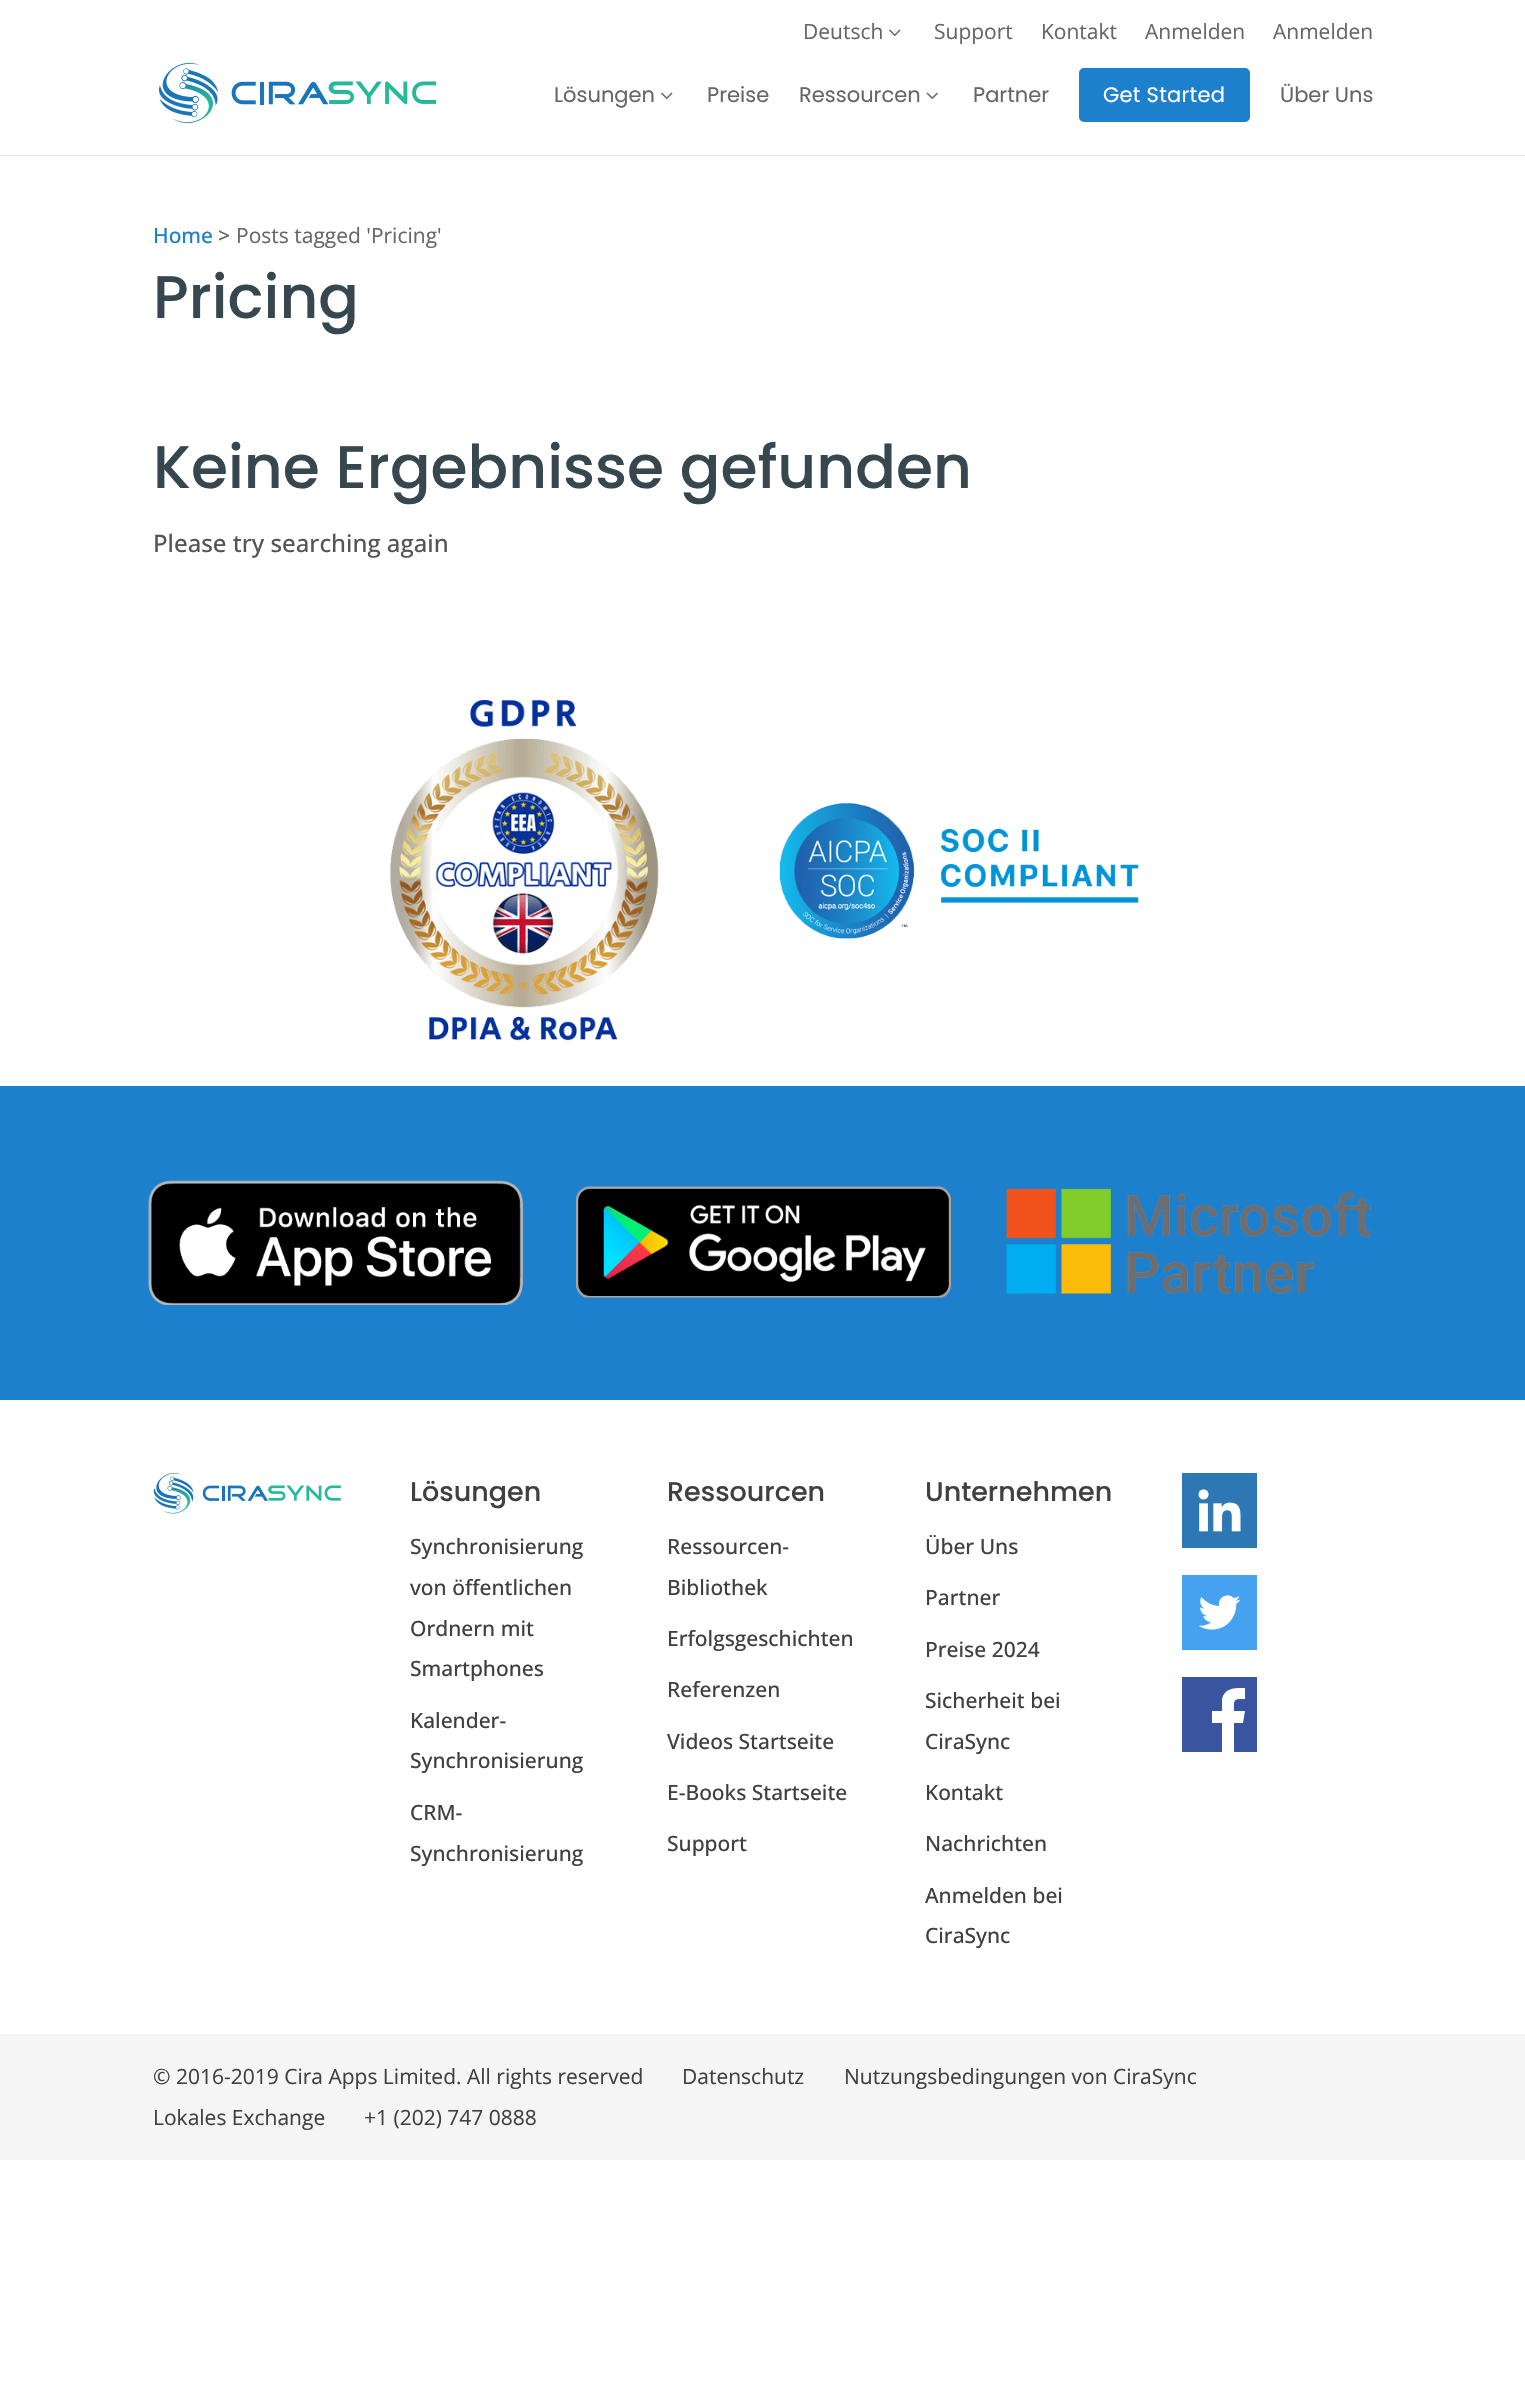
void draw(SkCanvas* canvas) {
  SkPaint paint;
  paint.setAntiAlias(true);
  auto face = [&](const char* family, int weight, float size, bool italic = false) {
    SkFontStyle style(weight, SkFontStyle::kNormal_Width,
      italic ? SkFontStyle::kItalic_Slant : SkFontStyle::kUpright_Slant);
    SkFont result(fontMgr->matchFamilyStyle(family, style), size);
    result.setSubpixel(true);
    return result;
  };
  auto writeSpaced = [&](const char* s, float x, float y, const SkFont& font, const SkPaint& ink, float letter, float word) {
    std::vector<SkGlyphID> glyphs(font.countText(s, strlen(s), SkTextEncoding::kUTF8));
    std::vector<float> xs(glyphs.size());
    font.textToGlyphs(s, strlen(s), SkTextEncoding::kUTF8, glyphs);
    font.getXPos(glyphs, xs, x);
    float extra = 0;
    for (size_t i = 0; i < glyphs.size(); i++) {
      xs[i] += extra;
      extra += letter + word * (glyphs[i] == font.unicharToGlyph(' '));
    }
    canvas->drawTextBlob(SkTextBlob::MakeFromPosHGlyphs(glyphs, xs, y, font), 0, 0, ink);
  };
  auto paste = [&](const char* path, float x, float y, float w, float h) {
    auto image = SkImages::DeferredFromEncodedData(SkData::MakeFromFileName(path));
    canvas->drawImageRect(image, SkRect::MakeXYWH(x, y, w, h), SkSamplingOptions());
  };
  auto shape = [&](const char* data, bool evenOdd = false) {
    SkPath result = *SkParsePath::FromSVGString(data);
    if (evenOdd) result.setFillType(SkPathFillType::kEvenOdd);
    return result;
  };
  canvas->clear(0xffffffff);
  paste("img/1.png", 889, 29, 12, 7);
  paint.setColor(0xffe6e6e6);
  canvas->drawPath(shape("M0 154V156H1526V47V154Z"), paint);
  paint.setColor(0xffffffff);
  canvas->drawRect(SkRect::MakeXYWH(0, 154, 1525, 1), paint);
  paste("img/2.png", 159, 63, 278, 60);
  paste("img/1.png", 661, 92, 12, 7);
  paste("img/3.png", 926, 92, 12, 7);
  paint.setColor(0xff1d80cc);
  canvas->drawRoundRect(SkRect::MakeXYWH(1080, 69, 169, 52), 4, 4, paint);
  paint.setStroke(true);
  paint.setStrokeWidth(2);
  paint.setColor(0xff1c80cc);
  canvas->drawRoundRect(SkRect::MakeXYWH(1080, 69, 169, 52), 4, 4, paint);
  paste("img/4.png", 390, 699, 269, 342);
  paste("img/5.png", 779, 802, 360, 137);
  paint.setStroke(false);
  paint.setColor(0xff1d80cc);
  canvas->drawRect(SkRect::MakeXYWH(0, 1086, 1525, 314), paint);
  paste("img/6.png", 148, 1180, 375, 125);
  paste("img/7.png", 576, 1186, 375, 112);
  paste("img/8.png", 1006, 1188, 365, 106);
  paste("img/9.png", 153, 1473, 188, 41);
  paste("img/10.png", 1182, 1473, 75, 75);
  paste("img/11.png", 1182, 1575, 75, 75);
  paint.setColor(0xff3a559f);
  canvas->drawPath(shape("M1182 1677V1752H1222V1723H1212V1711H1222V1699C1225 1687 1236 1688 1245 1688V1699C1233 1699 1234 1699 1234 1711H1245L1243 1723H1234V1752H1257V1677Z"), paint);
  paint.setColor(0xfff5f5f5);
  canvas->drawRect(SkRect::MakeXYWH(0, 2034, 1525, 126), paint);
  auto f0 = face("Open Sans", 400, 21);
  paint.setColor(0xff666666);
  {
    const struct { const char* s; float x, y; } items[] = {
      {"Deutsch", 803, 39},
      {"Support", 934, 39},
      {"Kontakt", 1041, 39},
      {"Anmelden", 1145, 39},
      {"Anmelden", 1273, 39},
    };
    for (auto [s, x, y] : items) {
      canvas->drawString(s, x, y, f0, paint);
    }
  }
  auto f1 = face("Poppins", 400, 21);
  {
    const struct { const char* s; float x, y; } items[] = {
      {"Lösungen", 554, 102},
      {"Preise", 707, 102},
      {"Ressourcen", 799, 102},
      {"Partner", 973, 102},
    };
    for (auto [s, x, y] : items) {
      canvas->drawString(s, x, y, f1, paint);
    }
  }
  paint.setColor(0xffffffff);
  writeSpaced("Get Started", 1103, 102, f1, paint, 0.25f, 0);
  paint.setColor(0xff666666);
  canvas->drawString("Über Uns", 1280, 102, f1, paint);
  auto f2 = face("Open Sans", 500, 21);
  paint.setColor(0xff1d80cc);
  canvas->drawString("Home", 153, 243, f2, paint);
  paint.setColor(0xff666666);
  canvas->drawString(">", 218, 243, f2, paint);
  canvas->drawString("Posts tagged 'Pricing'", 236, 243, f0, paint);
  auto f3 = face("Poppins", 500, 60);
  paint.setColor(0xff37474f);
  canvas->drawString("Pricing", 153, 318, f3, paint);
  canvas->drawString("Keine Ergebnisse gefunden", 153, 488, f3, paint);
  auto f4 = face("Open Sans", 500, 24);
  paint.setColor(0xff555555);
  canvas->drawString("Please try searching again", 153, 552, f4, paint);
  auto f5 = face("Poppins", 500, 27);
  paint.setColor(0xff404040);
  canvas->drawString("Lösungen", 410, 1501, f5, paint);
  {
    const struct { const char* s; float x, y; } items[] = {
      {"Synchronisierung", 410, 1554},
      {"von öffentlichen", 410, 1595},
      {"Ordnern mit", 410, 1636},
      {"Smartphones", 410, 1676},
      {"Kalender-", 410, 1728},
      {"Synchronisierung", 410, 1768},
      {"CRM-", 410, 1820},
      {"Synchronisierung", 410, 1861},
    };
    for (auto [s, x, y] : items) {
      canvas->drawString(s, x, y, f2, paint);
    }
  }
  canvas->drawString("Ressourcen", 667, 1501, f5, paint);
  {
    const struct { const char* s; float x, y; } items[] = {
      {"Ressourcen-", 667, 1554},
      {"Bibliothek", 667, 1595},
      {"Erfolgsgeschichten", 667, 1646},
      {"Referenzen", 667, 1697},
      {"Videos Startseite", 667, 1749},
      {"E-Books Startseite", 667, 1800},
      {"Support", 667, 1851},
    };
    for (auto [s, x, y] : items) {
      canvas->drawString(s, x, y, f2, paint);
    }
  }
  canvas->drawString("Unternehmen", 925, 1501, f5, paint);
  {
    const struct { const char* s; float x, y; } items[] = {
      {"Über Uns", 925, 1554},
      {"Partner", 925, 1605},
      {"Preise 2024", 925, 1657},
      {"Sicherheit bei", 925, 1708},
      {"CiraSync", 925, 1749},
      {"Kontakt", 925, 1800},
      {"Nachrichten", 925, 1851},
      {"Anmelden bei", 925, 1903},
      {"CiraSync", 925, 1943},
    };
    for (auto [s, x, y] : items) {
      canvas->drawString(s, x, y, f2, paint);
    }
  }
  {
    const struct { const char* s; float x, y; } items[] = {
      {"© 2016-2019 Cira Apps Limited. All rights reserved", 153, 2084},
      {"Datenschutz", 682, 2084},
      {"Nutzungsbedingungen von CiraSync", 844, 2084},
      {"Lokales Exchange", 153, 2125},
      {"+1 (202) 747 0888", 364, 2125},
    };
    for (auto [s, x, y] : items) {
      canvas->drawString(s, x, y, f0, paint);
    }
  }
}
